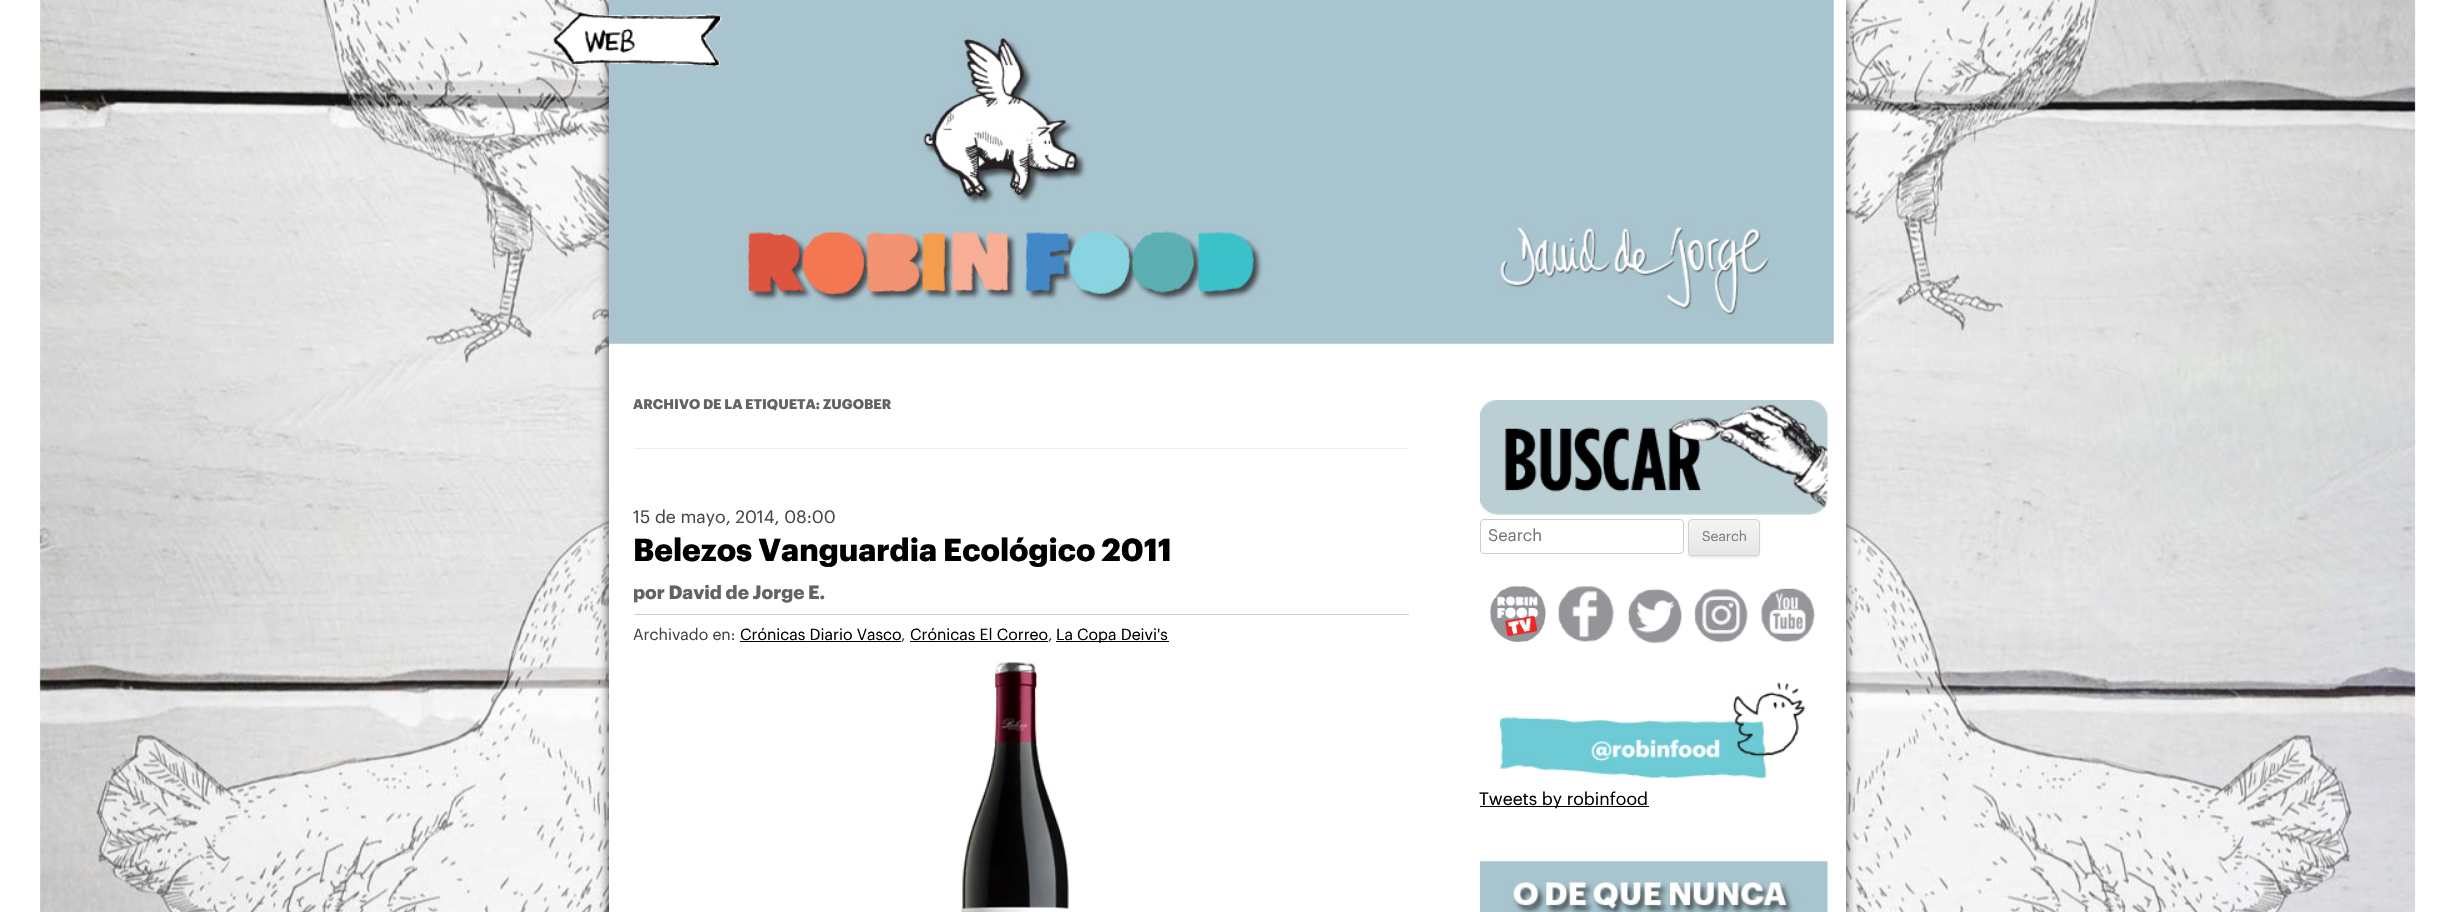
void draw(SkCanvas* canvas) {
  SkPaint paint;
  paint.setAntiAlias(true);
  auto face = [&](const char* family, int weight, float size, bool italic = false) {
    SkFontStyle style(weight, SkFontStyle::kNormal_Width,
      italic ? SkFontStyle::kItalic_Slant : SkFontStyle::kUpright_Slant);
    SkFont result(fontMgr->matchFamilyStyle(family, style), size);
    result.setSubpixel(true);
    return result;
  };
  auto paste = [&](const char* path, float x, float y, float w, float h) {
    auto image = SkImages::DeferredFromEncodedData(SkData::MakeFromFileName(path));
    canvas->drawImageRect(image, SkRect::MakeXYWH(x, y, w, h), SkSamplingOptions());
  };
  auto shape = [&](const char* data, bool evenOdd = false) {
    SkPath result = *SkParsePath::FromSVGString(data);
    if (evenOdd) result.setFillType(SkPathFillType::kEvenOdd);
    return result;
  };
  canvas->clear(0xffffffff);
  paste("img/1.png", 39, 0, 2377, 912);
  paint.setColor(0xb3000000);
  paint.setMaskFilter(SkMaskFilter::MakeBlur(kNormal_SkBlurStyle, 5));
  canvas->drawRect(SkRect::MakeXYWH(609, 0, 1237, 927), paint);
  paint.setMaskFilter(nullptr);
  paint.setColor(0xffffffff);
  canvas->drawRect(SkRect::MakeXYWH(609, 0, 1237, 912), paint);
  paste("img/3.png", 608, 0, 1226, 344);
  paste("img/2.png", 553, 12, 169, 55);
  {
    const struct { float x, y, w, h; SkColor color; } items[] = {
      {634, 448, 775, 1, 0xffededed},
      {634, 614, 775, 1, 0xffcccccc},
      {740, 641, 161, 1, 0xff000000},
      {910, 641, 138, 1, 0xff000000},
      {1056, 641, 113, 1, 0xff000000},
    };
    for (auto [x, y, w, h, color] : items) {
      paint.setColor(color);
      canvas->drawRect(SkRect::MakeXYWH(x, y, w, h), paint);
    }
  }
  paste("img/4.png", 961, 662, 108, 250);
  paste("img/5.png", 1480, 400, 348, 115);
  paint.setStroke(true);
  paint.setStrokeWidth(1);
  paint.setColor(0xffcccccc);
  canvas->drawRoundRect(SkRect::MakeXYWH(1480.5f, 519.5f, 203, 34), 3.5f, 3.5f, paint);
  paint.setStroke(false);
  paint.setColor(0x1a404040);
  paint.setMaskFilter(SkMaskFilter::MakeBlur(kNormal_SkBlurStyle, 1));
  canvas->drawRoundRect(SkRect::MakeXYWH(1688, 520, 72, 38), 4, 4, paint);
  paint.setMaskFilter(nullptr);
  canvas->save();
  canvas->clipPath(shape("M1692 519H1756C1758 519 1760 521 1760 523V552C1760 554 1758 556 1756 556H1692C1690 556 1688 554 1688 552V523C1688 521 1690 519 1692 519Z"), true);
  {
    const SkColor colors[] = {0xfff4f4f4, 0xffe6e6e6};
    const float stops[] = {0, 1};
    const SkPoint ends[] = {{1724, 520}, {1724, 555}};
    paint.setShader(SkGradientShader::MakeLinear(ends, colors, stops, 2, SkTileMode::kClamp));
    paint.setAlpha(255);
  }
  canvas->drawRect(SkRect::MakeXYWH(1688, 520, 72, 35), paint);
  canvas->restore();
  paint.setStroke(true);
  paint.setShader(nullptr);
  paint.setColor(0xffd2d2d2);
  canvas->drawRoundRect(SkRect::MakeXYWH(1688.5f, 519.5f, 71, 36), 3.5f, 3.5f, paint);
  paste("img/6.png", 1490, 585, 56, 58);
  paste("img/7.png", 1558, 586, 56, 56);
  paste("img/8.png", 1628, 588, 54, 56);
  paste("img/9.png", 1694, 588, 54, 55);
  paste("img/10.png", 1761, 588, 55, 55);
  paste("img/11.png", 1499, 682, 307, 97);
  paint.setStroke(false);
  paint.setColor(0xff000000);
  canvas->drawRect(SkRect::MakeXYWH(1480, 806, 169, 1), paint);
  paste("img/12.png", 1480, 861, 348, 51);
  auto f0 = face("Graphik", 700, 13.75f);
  paint.setColor(0xff636363);
  canvas->drawString("ARCHIVO DE LA ETIQUETA: ZUGOBER", 633, 409, f0, paint);
  auto f1 = face("Graphik", 400, 17.5f);
  paint.setColor(0xff444444);
  canvas->drawString("15 de mayo, 2014, 08:00", 633, 523, f1, paint);
  auto f2 = face("Graphik", 700, 31.25f);
  paint.setColor(0xff000000);
  canvas->drawString("Belezos Vanguardia Ecológico 2011", 633, 561, f2, paint);
  auto f3 = face("Graphik", 700, 18.75f);
  paint.setColor(0xff636363);
  canvas->drawString("por David de Jorge E.", 633, 599, f3, paint);
  auto f4 = face("Graphik", 400, 15.75f);
  paint.setColor(0xff444444);
  canvas->drawString("Archivado en:", 633, 640, f4, paint);
  paint.setColor(0xff000000);
  canvas->drawString("Crónicas Diario Vasco", 740, 640, f4, paint);
  paint.setColor(0xff444444);
  canvas->drawString(",", 901, 640, f4, paint);
  paint.setColor(0xff000000);
  canvas->drawString("Crónicas El Correo", 910, 640, f4, paint);
  paint.setColor(0xff444444);
  canvas->drawString(",", 1048, 640, f4, paint);
  paint.setColor(0xff000000);
  canvas->drawString("La Copa Deivi's", 1056, 640, f4, paint);
  auto f5 = face("Graphik", 400, 16.5f);
  paint.setColor(0xff757575);
  canvas->drawString("Search", 1488, 541, f5, paint);
  auto f6 = face("Graphik", 400, 13.75f);
  paint.setColor(0xff7c7c7c);
  canvas->drawString("Search", 1702, 541, f6, paint);
  paint.setColor(0xff000000);
  canvas->drawString("Tweets by robinfood", 1479, 805, f1, paint);
}
